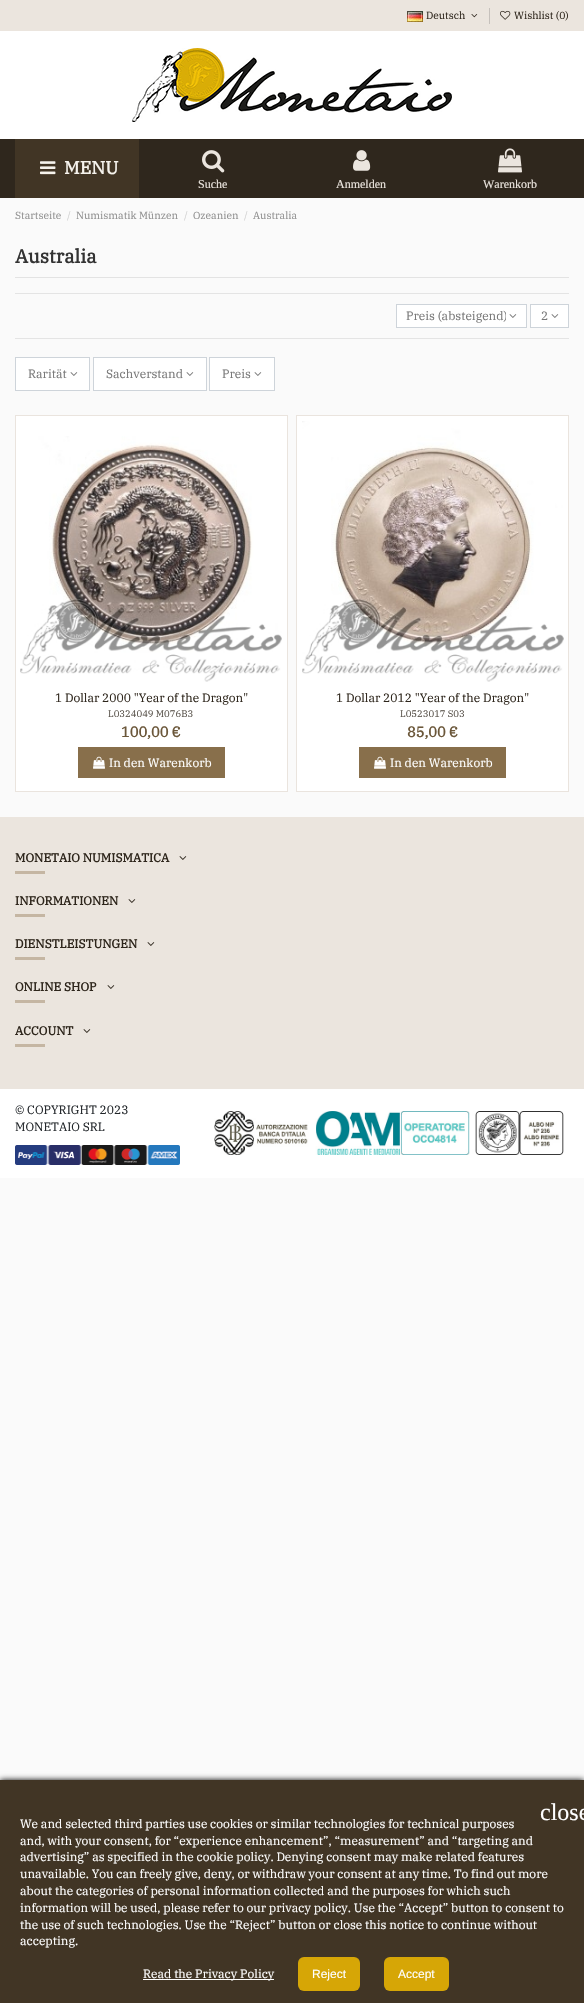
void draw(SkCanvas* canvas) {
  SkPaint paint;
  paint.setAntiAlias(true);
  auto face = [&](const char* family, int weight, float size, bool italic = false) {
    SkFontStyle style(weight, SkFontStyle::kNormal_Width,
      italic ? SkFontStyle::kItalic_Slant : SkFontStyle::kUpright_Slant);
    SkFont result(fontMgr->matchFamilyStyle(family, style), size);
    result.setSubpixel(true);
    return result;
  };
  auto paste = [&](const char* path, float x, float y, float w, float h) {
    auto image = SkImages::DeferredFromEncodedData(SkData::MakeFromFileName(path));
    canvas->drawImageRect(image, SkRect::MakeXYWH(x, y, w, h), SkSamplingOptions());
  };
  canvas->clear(0xfffafafa);
  paint.setColor(0xffffffff);
  canvas->drawRect(SkRect::MakeXYWH(0, 31, 584, 108), paint);
  paint.setColor(0xffebe5de);
  canvas->drawRect(SkRect::MakeXYWH(0, 0, 584, 31), paint);
  paste("img/1.png", 407, 11, 16, 11);
  paste("img/2.png", 471, 14, 7, 4);
  paint.setColor(0xffc6c1bc);
  canvas->drawRect(SkRect::MakeXYWH(489, 8, 1, 16), paint);
  paste("img/3.png", 500, 10, 11, 10);
  paste("img/4.png", 132, 48, 320, 74);
  paint.setColor(0xff2f271d);
  canvas->drawRect(SkRect::MakeXYWH(0, 139, 584, 59), paint);
  paint.setColor(0xff413525);
  canvas->drawRect(SkRect::MakeXYWH(15, 139, 124, 59), paint);
  paste("img/5.png", 40, 161, 16, 14);
  paste("img/6.png", 202, 150, 23, 23);
  paste("img/7.png", 353, 150, 18, 21);
  paste("img/8.png", 498, 148, 24, 25);
  {
    const struct { float x, y, w, h; SkColor color; } items[] = {
      {15, 277, 554, 1, 0xffe3e3e3},
      {15, 293, 554, 1, 0xffe4e4e4},
      {15, 338, 554, 1, 0xffe4e4e4},
    };
    for (auto [x, y, w, h, color] : items) {
      paint.setColor(color);
      canvas->drawRect(SkRect::MakeXYWH(x, y, w, h), paint);
    }
  }
  paint.setColor(0xffffffff);
  canvas->drawRect(SkRect::MakeXYWH(396.5f, 304.5f, 130, 23), paint);
  paint.setStroke(true);
  paint.setStrokeWidth(1);
  paint.setColor(0xffced4da);
  canvas->drawRect(SkRect::MakeXYWH(396.5f, 304.5f, 130, 23), paint);
  paste("img/9.png", 509, 314, 8, 4);
  paint.setStroke(false);
  paint.setColor(0xffffffff);
  canvas->drawRect(SkRect::MakeXYWH(530.5f, 304.5f, 38, 23), paint);
  paint.setStroke(true);
  paint.setColor(0xffced4da);
  canvas->drawRect(SkRect::MakeXYWH(530.5f, 304.5f, 38, 23), paint);
  paste("img/9.png", 551, 314, 8, 4);
  paint.setStroke(false);
  paint.setColor(0xffffffff);
  canvas->drawRect(SkRect::MakeXYWH(15.5f, 357.5f, 74, 33), paint);
  paint.setStroke(true);
  paint.setColor(0xffced4da);
  canvas->drawRect(SkRect::MakeXYWH(15.5f, 357.5f, 74, 33), paint);
  paste("img/9.png", 70, 372, 8, 4);
  paint.setStroke(false);
  paint.setColor(0xffffffff);
  canvas->drawRect(SkRect::MakeXYWH(93.5f, 357.5f, 113, 33), paint);
  paint.setStroke(true);
  paint.setColor(0xffced4da);
  canvas->drawRect(SkRect::MakeXYWH(93.5f, 357.5f, 113, 33), paint);
  paste("img/9.png", 186, 372, 8, 4);
  paint.setStroke(false);
  paint.setColor(0xffffffff);
  canvas->drawRect(SkRect::MakeXYWH(209.5f, 357.5f, 65, 33), paint);
  paint.setStroke(true);
  paint.setColor(0xffced4da);
  canvas->drawRect(SkRect::MakeXYWH(209.5f, 357.5f, 65, 33), paint);
  paste("img/9.png", 254, 372, 8, 4);
  paint.setStroke(false);
  paint.setColor(0xffffffff);
  canvas->drawRect(SkRect::MakeXYWH(15.5f, 415.5f, 272, 376), paint);
  paint.setStroke(true);
  paint.setColor(0xffeae4de);
  canvas->drawRect(SkRect::MakeXYWH(15.5f, 415.5f, 272, 376), paint);
  paste("img/10.png", 20, 436, 262, 246);
  paint.setStroke(false);
  paint.setColor(0xff886f4b);
  canvas->drawRect(SkRect::MakeXYWH(78, 747, 147, 31), paint);
  paste("img/11.png", 93, 756, 12, 13);
  paint.setColor(0xffffffff);
  canvas->drawRect(SkRect::MakeXYWH(296.5f, 415.5f, 272, 376), paint);
  paint.setStroke(true);
  paint.setColor(0xffeae4de);
  canvas->drawRect(SkRect::MakeXYWH(296.5f, 415.5f, 272, 376), paint);
  paste("img/12.png", 302, 421, 262, 261);
  paint.setStroke(false);
  paint.setColor(0xff886f4b);
  canvas->drawRect(SkRect::MakeXYWH(359, 747, 147, 31), paint);
  paste("img/11.png", 374, 756, 12, 13);
  paint.setColor(0xffebe5de);
  canvas->drawRect(SkRect::MakeXYWH(0, 817, 584, 272), paint);
  paste("img/13.png", 179, 856, 8, 4);
  paint.setColor(0xffc5b6a3);
  canvas->drawRect(SkRect::MakeXYWH(15, 871, 30, 3), paint);
  paste("img/13.png", 128, 899, 8, 4);
  canvas->drawRect(SkRect::MakeXYWH(15, 914, 30, 3), paint);
  paste("img/13.png", 147, 942, 8, 4);
  canvas->drawRect(SkRect::MakeXYWH(15, 957, 30, 3), paint);
  paste("img/13.png", 107, 985, 8, 4);
  canvas->drawRect(SkRect::MakeXYWH(15, 1000, 30, 3), paint);
  paste("img/13.png", 83, 1029, 8, 4);
  canvas->drawRect(SkRect::MakeXYWH(15, 1044, 30, 3), paint);
  paint.setColor(0xffffffff);
  canvas->drawRect(SkRect::MakeXYWH(0, 1089, 584, 89), paint);
  paste("img/14.png", 15, 1145, 165, 20);
  paste("img/15.png", 214, 1111, 350, 44);
  paint.setColor(0xff000000);
  paint.setMaskFilter(SkMaskFilter::MakeBlur(kNormal_SkBlurStyle, 3));
  canvas->drawRect(SkRect::MakeXYWH(0, 1780, 584, 223), paint);
  paint.setMaskFilter(nullptr);
  paint.setColor(0xff413525);
  canvas->drawRect(SkRect::MakeXYWH(0, 1780, 584, 223), paint);
  paint.setColor(0xffffffff);
  canvas->drawRect(SkRect::MakeXYWH(143, 1979, 131, 1), paint);
  paint.setColor(0xffd6a606);
  canvas->drawRoundRect(SkRect::MakeXYWH(298, 1957, 62, 34), 6, 6, paint);
  canvas->drawRoundRect(SkRect::MakeXYWH(384, 1957, 65, 34), 6, 6, paint);
  auto f0 = face("IBM Plex Serif", 400, 10.25f);
  paint.setColor(0xff2d251b);
  canvas->drawString("Deutsch", 426, 19, f0, paint);
  canvas->drawString("Wishlist (0)", 514, 19, f0, paint);
  auto f1 = face("IBM Plex Serif", 700, 18);
  paint.setColor(0xfff6f3ed);
  canvas->drawString("MENU", 64, 174, f1, paint);
  auto f2 = face("Liberation Serif", 400, 12);
  paint.setColor(0xffebe5de);
  {
    const struct { const char* s; float x, y; } items[] = {
      {"Suche", 198, 188},
      {"Anmelden", 336, 188},
      {"Warenkorb", 483, 188},
    };
    for (auto [s, x, y] : items) {
      canvas->drawString(s, x, y, f2, paint);
    }
  }
  paint.setColor(0xff8f8f8f);
  canvas->drawString("Startseite", 15, 219, f0, paint);
  paint.setColor(0xffcfcfcf);
  canvas->drawString("/", 67, 219, f0, paint);
  paint.setColor(0xff8f8f8f);
  canvas->drawString("Numismatik Münzen", 76, 219, f0, paint);
  paint.setColor(0xffcfcfcf);
  canvas->drawString("/", 184, 219, f0, paint);
  paint.setColor(0xff8f8f8f);
  canvas->drawString("Ozeanien", 193, 219, f0, paint);
  paint.setColor(0xffcfcfcf);
  canvas->drawString("/", 244, 219, f0, paint);
  paint.setColor(0xff8f8f8f);
  canvas->drawString("Australia", 253, 219, f0, paint);
  auto f3 = face("IBM Plex Serif", 700, 19);
  paint.setColor(0xff333333);
  canvas->drawString("Australia", 15, 263, f3, paint);
  canvas->save();
  canvas->clipRect(SkRect::MakeXYWH(406, 307, 100, 18));
  auto f4 = face("IBM Plex Serif", 400, 12);
  paint.setColor(0xff777777);
  canvas->drawString("Preis (absteigend)", 406, 320, f4, paint);
  canvas->restore();
  {
    const struct { const char* s; float x, y; } items[] = {
      {"2", 541, 320},
      {"Rarität", 28, 378},
      {"Sachverstand", 106, 378},
      {"Preis", 222, 378},
    };
    for (auto [s, x, y] : items) {
      canvas->drawString(s, x, y, f4, paint);
    }
  }
  paint.setColor(0xff2d251b);
  canvas->drawString("1 Dollar 2000 \"Year of the Dragon\"", 55, 702, f4, paint);
  auto f5 = face("IBM Plex Serif", 400, 9.5f);
  paint.setColor(0xff575149);
  canvas->drawString("L0324049 M076B3", 108, 717, f5, paint);
  auto f6 = face("IBM Plex Serif", 700, 14.5f);
  paint.setColor(0xff6b573a);
  canvas->drawString("100,00 €", 121, 737, f6, paint);
  paint.setColor(0xffffffff);
  canvas->drawString("In den Warenkorb", 109, 767, f4, paint);
  paint.setColor(0xff2d251b);
  canvas->drawString("1 Dollar 2012 \"Year of the Dragon\"", 336, 702, f4, paint);
  paint.setColor(0xff575149);
  canvas->drawString("L0523017 S03", 400, 717, f5, paint);
  paint.setColor(0xff6b573a);
  canvas->drawString("85,00 €", 407, 737, f6, paint);
  paint.setColor(0xffffffff);
  canvas->drawString("In den Warenkorb", 390, 767, f4, paint);
  auto f7 = face("IBM Plex Serif", 700, 12);
  paint.setColor(0xff2d251b);
  {
    const struct { const char* s; float x, y; } items[] = {
      {"MONETAIO NUMISMATICA", 15, 862},
      {"INFORMATIONEN", 15, 905},
      {"DIENSTLEISTUNGEN", 15, 948},
      {"ONLINE SHOP", 15, 991},
      {"ACCOUNT", 15, 1035},
    };
    for (auto [s, x, y] : items) {
      canvas->drawString(s, x, y, f7, paint);
    }
  }
  paint.setColor(0xff212529);
  canvas->drawString("© COPYRIGHT 2023", 15, 1114, f4, paint);
  canvas->drawString("MONETAIO SRL", 15, 1131, f4, paint);
  auto f8 = face("Liberation Serif", 400, 24);
  paint.setColor(0xffffffff);
  canvas->drawString("close", 540, 1820, f8, paint);
  {
    const struct { const char* s; float x, y; } items[] = {
      {"We and selected third parties use cookies or similar technologies for technical purposes", 20, 1828},
      {"and, with your consent, for “experience enhancement”, “measurement” and “targeting and", 20, 1845},
      {"advertising” as specified in the cookie policy. Denying consent may make related features", 20, 1861},
      {"unavailable. You can freely give, deny, or withdraw your consent at any time. To find out more", 20, 1878},
      {"about the categories of personal information collected and the purposes for which such", 20, 1895},
      {"information will be used, please refer to our privacy policy. Use the “Accept” button to consent to", 20, 1912},
      {"the use of such technologies. Use the “Reject” button or close this notice to continue without", 20, 1929},
      {"accepting.", 20, 1945},
      {"Read the Privacy Policy", 143, 1978},
    };
    for (auto [s, x, y] : items) {
      canvas->drawString(s, x, y, f4, paint);
    }
  }
  auto f9 = face("Liberation Sans", 400, 12);
  canvas->drawString("Reject", 312, 1978, f9, paint);
  canvas->drawString("Accept", 398, 1978, f9, paint);
}
